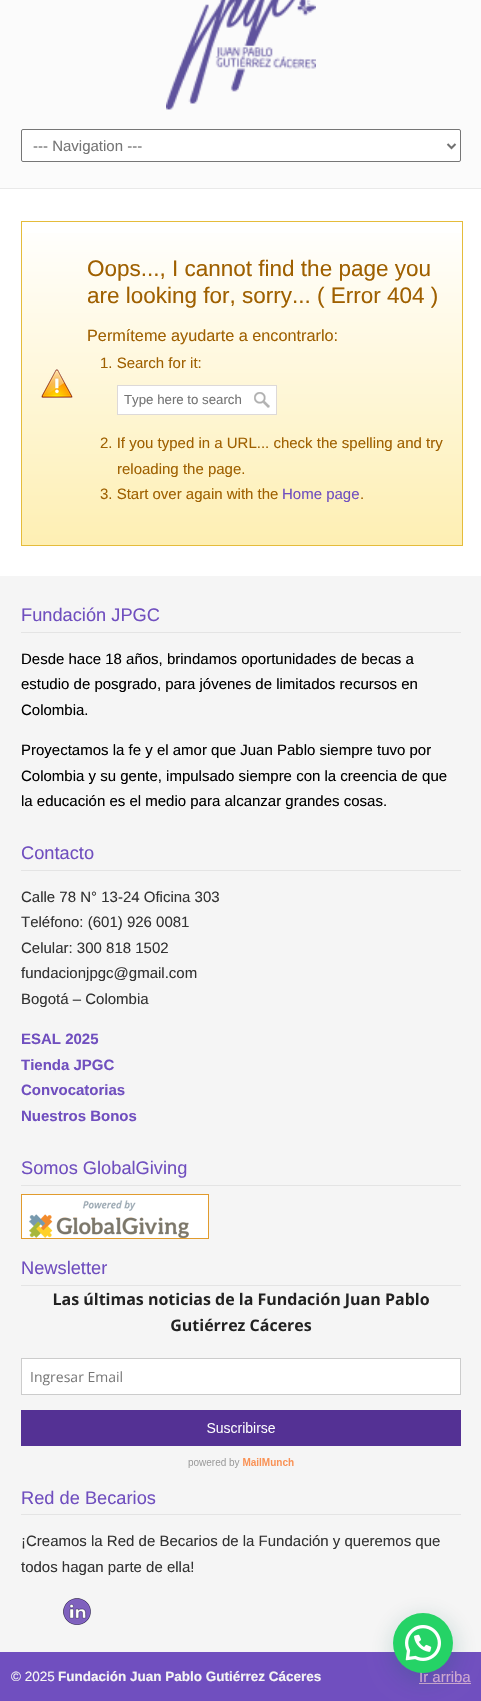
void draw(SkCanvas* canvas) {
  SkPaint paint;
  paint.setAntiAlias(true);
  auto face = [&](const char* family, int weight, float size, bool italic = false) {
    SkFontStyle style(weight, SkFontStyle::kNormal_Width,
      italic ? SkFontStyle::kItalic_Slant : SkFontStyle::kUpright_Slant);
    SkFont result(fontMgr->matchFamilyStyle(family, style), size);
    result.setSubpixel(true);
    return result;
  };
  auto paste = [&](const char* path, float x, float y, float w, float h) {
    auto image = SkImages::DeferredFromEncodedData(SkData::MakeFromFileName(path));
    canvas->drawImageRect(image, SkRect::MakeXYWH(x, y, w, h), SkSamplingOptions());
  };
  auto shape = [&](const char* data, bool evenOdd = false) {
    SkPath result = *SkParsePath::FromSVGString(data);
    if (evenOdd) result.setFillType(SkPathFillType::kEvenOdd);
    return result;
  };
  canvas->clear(0xfffbfbfb);
  paste("img/1.png", 166, 0, 150, 110);
  paint.setColor(0xffe9e9e9);
  canvas->drawRect(SkRect::MakeXYWH(0, 188, 481, 1), paint);
  paint.setColor(0xffffffff);
  canvas->drawRoundRect(SkRect::MakeXYWH(21.5f, 129.5f, 439, 32), 1.5f, 1.5f, paint);
  paint.setStroke(true);
  paint.setStrokeWidth(1);
  paint.setColor(0xff767676);
  canvas->drawRoundRect(SkRect::MakeXYWH(21.5f, 129.5f, 439, 32), 1.5f, 1.5f, paint);
  paint.setStrokeWidth(2);
  paint.setColor(0xff717171);
  canvas->drawPath(shape("M447.5 144L451.5 148L455.5 144"), paint);
  paint.setStroke(false);
  paint.setColor(0xffffffff);
  canvas->drawRect(SkRect::MakeXYWH(0, 189, 481, 387), paint);
  {
    const SkColor colors[] = {0xffffffff, 0xfffeefb3};
    const float stops[] = {0, 1};
    const SkPoint ends[] = {{242, 222}, {242, 545}};
    paint.setShader(SkGradientShader::MakeLinear(ends, colors, stops, 2, SkTileMode::kClamp));
    paint.setAlpha(255);
  }
  canvas->drawRect(SkRect::MakeXYWH(22, 233, 440, 312), paint);
  paint.setStroke(true);
  paint.setStrokeWidth(1);
  paint.setShader(nullptr);
  paint.setColor(0xffe5bc3b);
  canvas->drawRect(SkRect::MakeXYWH(21.5f, 221.5f, 441, 324), paint);
  paste("img/2.png", 41, 369, 32, 29);
  paint.setStroke(false);
  paint.setColor(0xffffffff);
  canvas->drawRect(SkRect::MakeXYWH(117.5f, 385.5f, 159, 29), paint);
  paint.setStroke(true);
  paint.setColor(0xffddd9d9);
  canvas->drawRect(SkRect::MakeXYWH(117.5f, 385.5f, 159, 29), paint);
  paste("img/3.png", 254, 392, 16, 16);
  paint.setStroke(false);
  {
    const struct { float x, y, w, h; SkColor color; } items[] = {
      {0, 576, 481, 1076, 0xfff5f5f5},
      {21, 632, 440, 1, 0xffe4e4e4},
      {21, 870, 440, 1, 0xffe4e4e4},
      {21, 1185, 440, 1, 0xffe4e4e4},
    };
    for (auto [x, y, w, h, color] : items) {
      paint.setColor(color);
      canvas->drawRect(SkRect::MakeXYWH(x, y, w, h), paint);
    }
  }
  paint.setColor(0xffffffff);
  canvas->drawRect(SkRect::MakeXYWH(21.5f, 1194.5f, 187, 44), paint);
  paint.setStroke(true);
  paint.setColor(0xffe19b2d);
  canvas->drawRect(SkRect::MakeXYWH(21.5f, 1194.5f, 187, 44), paint);
  paste("img/4.png", 29, 1200, 160, 38);
  paint.setStroke(false);
  paint.setColor(0xffe4e4e4);
  canvas->drawRect(SkRect::MakeXYWH(21, 1285, 440, 1), paint);
  paste("img/5.png", 21, 1292, 440, 176);
  canvas->drawRect(SkRect::MakeXYWH(21, 1514, 440, 1), paint);
  paste("img/6.png", 63, 1598, 28, 27);
  paint.setColor(0xff704fbf);
  canvas->drawRect(SkRect::MakeXYWH(0, 1652, 481, 49), paint);
  paint.setColor(0xffcda8cf);
  canvas->drawRect(SkRect::MakeXYWH(419, 1683, 52, 1), paint);
  paint.setColor(0x3d075e54);
  paint.setMaskFilter(SkMaskFilter::MakeBlur(kNormal_SkBlurStyle, 12));
  canvas->drawRoundRect(SkRect::MakeXYWH(394, 1619, 60, 60), 30, 30, paint);
  paint.setMaskFilter(nullptr);
  auto f0 = face("Liberation Sans", 400, 15);
  paint.setColor(0xff757575);
  canvas->drawString("--- Navigation ---", 33, 151, f0, paint);
  auto f1 = face("Liberation Sans", 400, 22.5f);
  paint.setColor(0xff9f6000);
  canvas->drawString("Oops..., I cannot find the page you", 87, 276, f1, paint);
  canvas->drawString("are looking for, sorry... ( Error 404 )", 87, 303, f1, paint);
  auto f2 = face("Liberation Sans", 400, 16.25f);
  canvas->drawString("Permíteme ayudarte a encontrarlo:", 87, 341, f2, paint);
  canvas->drawString("1. Search for it:", 100, 368, f0, paint);
  auto f3 = face("Liberation Sans", 400, 13.25f);
  paint.setColor(0xff757575);
  canvas->drawString("Type here to search", 124, 404, f3, paint);
  paint.setColor(0xff9f6000);
  {
    const struct { const char* s; float x, y; } items[] = {
      {"2. If you typed in a URL... check the spelling and try", 100, 448},
      {"reloading the page.", 117, 474},
      {"3. Start over again with the", 100, 499},
    };
    for (auto [s, x, y] : items) {
      canvas->drawString(s, x, y, f0, paint);
    }
  }
  paint.setColor(0xff704fbf);
  canvas->drawString("Home page", 282, 499, f0, paint);
  paint.setColor(0xff9f6000);
  canvas->drawString(".", 360, 499, f0, paint);
  auto f4 = face("Liberation Sans", 400, 18.25f);
  paint.setColor(0xff704fbf);
  canvas->drawString("Fundación JPGC", 21, 621, f4, paint);
  paint.setColor(0xff000000);
  {
    const struct { const char* s; float x, y; } items[] = {
      {"Desde hace 18 años, brindamos oportunidades de becas a", 21, 664},
      {"estudio de posgrado, para jóvenes de limitados recursos en", 21, 689},
      {"Colombia.", 21, 715},
      {"Proyectamos la fe y el amor que Juan Pablo siempre tuvo por", 21, 755},
      {"Colombia y su gente, impulsado siempre con la creencia de que", 21, 781},
      {"la educación es el medio para alcanzar grandes cosas.", 21, 806},
    };
    for (auto [s, x, y] : items) {
      canvas->drawString(s, x, y, f0, paint);
    }
  }
  paint.setColor(0xff704fbf);
  canvas->drawString("Contacto", 21, 859, f4, paint);
  paint.setColor(0xff333333);
  {
    const struct { const char* s; float x, y; } items[] = {
      {"Calle 78 N° 13-24 Oficina 303", 21, 902},
      {"Teléfono: (601) 926 0081", 21, 927},
      {"Celular: 300 818 1502", 21, 953},
      {"fundacionjpgc@gmail.com", 21, 978},
      {"Bogotá – Colombia", 21, 1004},
    };
    for (auto [s, x, y] : items) {
      canvas->drawString(s, x, y, f0, paint);
    }
  }
  auto f5 = face("Liberation Sans", 700, 15);
  paint.setColor(0xff704fbf);
  {
    const struct { const char* s; float x, y; } items[] = {
      {"ESAL 2025", 21, 1044},
      {"Tienda JPGC", 21, 1070},
      {"Convocatorias", 21, 1095},
      {"Nuestros Bonos", 21, 1121},
    };
    for (auto [s, x, y] : items) {
      canvas->drawString(s, x, y, f5, paint);
    }
  }
  {
    const struct { const char* s; float x, y; } items[] = {
      {"Somos GlobalGiving", 21, 1174},
      {"Newsletter", 21, 1274},
      {"Red de Becarios", 21, 1504},
    };
    for (auto [s, x, y] : items) {
      canvas->drawString(s, x, y, f4, paint);
    }
  }
  paint.setColor(0xff333333);
  canvas->drawString("¡Creamos la Red de Becarios de la Fundación y queremos que", 21, 1546, f0, paint);
  canvas->drawString("todos hagan parte de ella!", 21, 1572, f0, paint);
  auto f6 = face("Liberation Sans", 400, 13.5f);
  paint.setColor(0xfff5f5f5);
  canvas->drawString("© 2025", 11, 1681, f6, paint);
  auto f7 = face("Liberation Sans", 700, 13.5f);
  canvas->drawString("Fundación Juan Pablo Gutiérrez Cáceres", 58, 1681, f7, paint);
  paint.setColor(0xffcda8cf);
  canvas->drawString("Ir arriba", 419, 1682, f0, paint);
  paint.setColor(0xff25d366);
  canvas->drawCircle(423, 1643, 30, paint);
  paste("img/7.png", 405, 1625, 36, 36);
}
